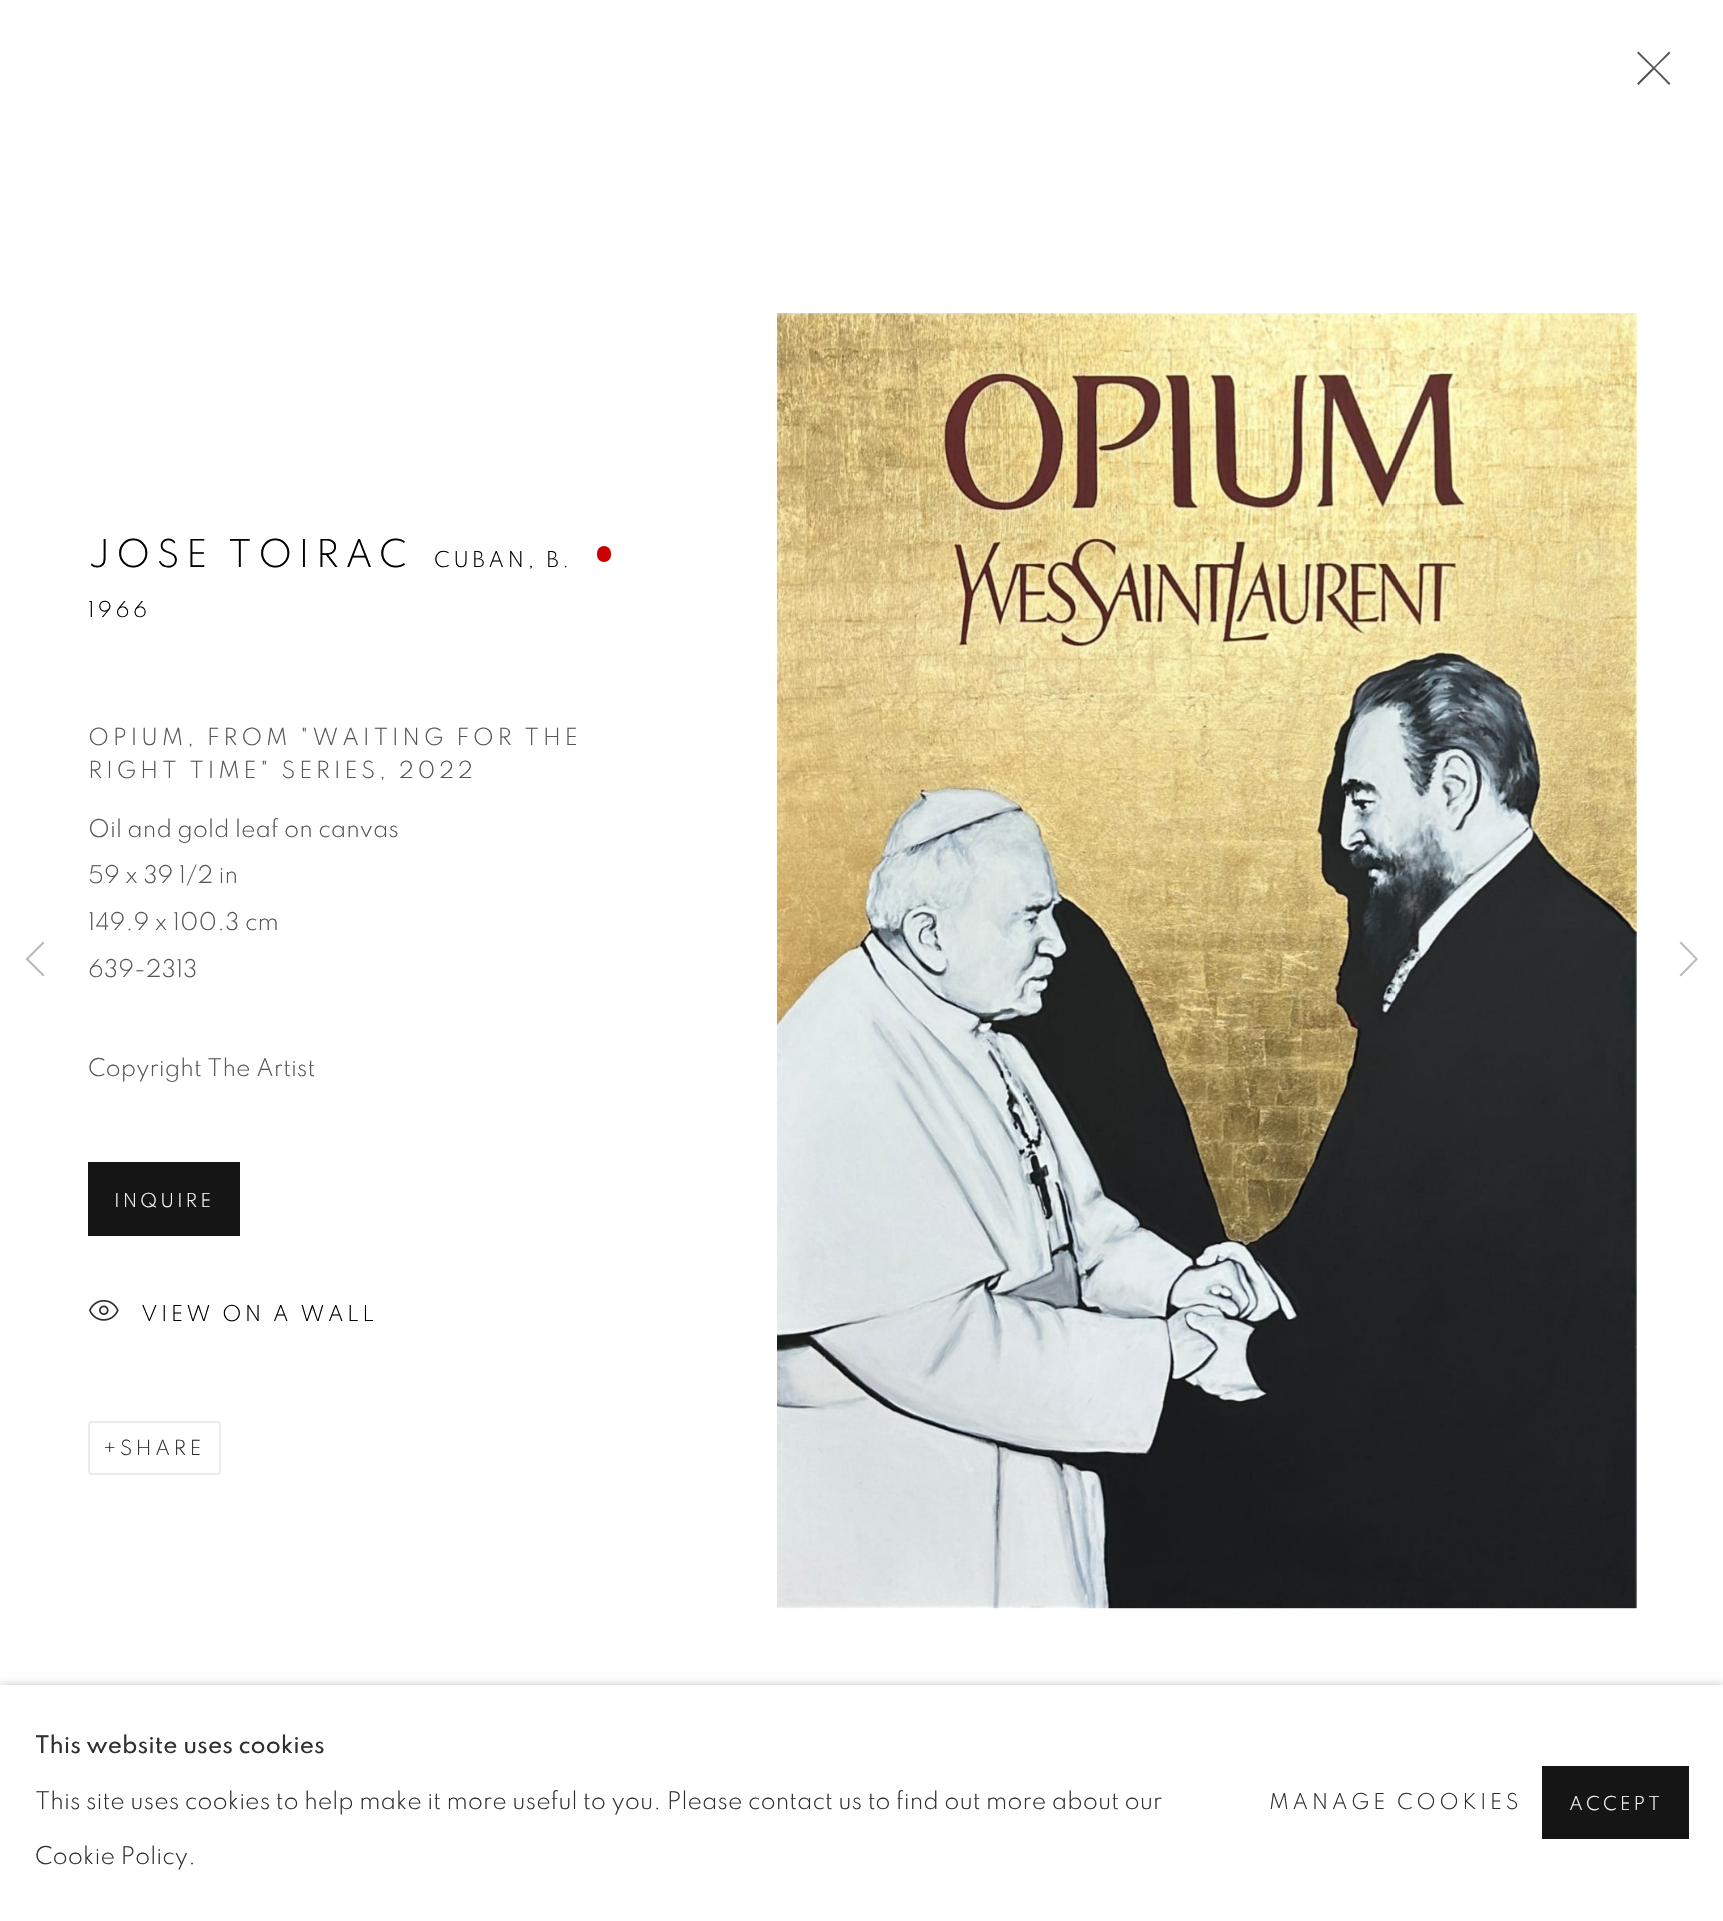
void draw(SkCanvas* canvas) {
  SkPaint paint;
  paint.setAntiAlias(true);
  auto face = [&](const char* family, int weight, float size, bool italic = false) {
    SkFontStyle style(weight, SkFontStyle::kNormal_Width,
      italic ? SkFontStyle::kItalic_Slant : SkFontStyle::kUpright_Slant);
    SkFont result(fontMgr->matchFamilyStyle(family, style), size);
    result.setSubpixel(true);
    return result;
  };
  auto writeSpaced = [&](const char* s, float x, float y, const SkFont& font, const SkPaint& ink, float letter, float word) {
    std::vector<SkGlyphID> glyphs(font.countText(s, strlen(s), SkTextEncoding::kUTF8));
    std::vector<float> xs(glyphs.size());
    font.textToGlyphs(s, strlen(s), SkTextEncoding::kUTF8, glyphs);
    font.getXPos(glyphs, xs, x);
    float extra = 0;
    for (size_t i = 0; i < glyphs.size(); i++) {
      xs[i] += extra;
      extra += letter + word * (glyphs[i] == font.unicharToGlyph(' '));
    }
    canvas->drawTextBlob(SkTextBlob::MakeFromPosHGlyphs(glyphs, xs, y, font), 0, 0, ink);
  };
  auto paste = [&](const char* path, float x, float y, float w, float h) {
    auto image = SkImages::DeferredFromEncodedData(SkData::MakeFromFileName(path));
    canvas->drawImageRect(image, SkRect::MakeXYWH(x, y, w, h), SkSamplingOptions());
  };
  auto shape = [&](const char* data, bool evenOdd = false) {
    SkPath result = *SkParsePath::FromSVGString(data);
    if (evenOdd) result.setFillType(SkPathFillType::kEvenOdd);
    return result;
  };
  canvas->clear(0xffffffff);
  paint.setColor(0xff555555);
  canvas->drawPath(shape("M1670.5 53L1669 51.5L1654 67L1638.5 51.5L1637 53L1652.5 68L1637 83.5L1638.5 85L1654 69.5L1669 85L1670.5 83.5L1655 68Z"), paint);
  paint.setColor(0xffcc0000);
  canvas->drawRoundRect(SkRect::MakeXYWH(597, 546, 14, 16), 7, 7, paint);
  paint.setColor(0xff151515);
  canvas->drawRect(SkRect::MakeXYWH(88, 1162, 152, 74), paint);
  paste("img/1.png", 89, 1299, 30, 22);
  paint.setStroke(true);
  paint.setStrokeWidth(2);
  paint.setColor(0xffebebeb);
  canvas->drawRoundRect(SkRect::MakeXYWH(89, 1422, 131, 52), 3, 3, paint);
  paste("img/2.png", 777, 313, 860, 1296);
  paint.setStroke(false);
  paint.setColor(0xffb9b9b9);
  canvas->drawPath(shape("M27 960.5L43 976.5L44.5 975L28.5 959L44.5 943L43 941.5L25.5 959Z"), paint);
  canvas->drawPath(shape("M1698 959L1681 941.5L1679.5 943L1695.5 959L1679.5 975L1681 976.5Z"), paint);
  paint.setColor(0x3b000000);
  paint.setMaskFilter(SkMaskFilter::MakeBlur(kNormal_SkBlurStyle, 4.5f));
  canvas->drawRect(SkRect::MakeXYWH(0, 1685, 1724, 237), paint);
  paint.setMaskFilter(nullptr);
  paint.setColor(0xffffffff);
  canvas->drawRect(SkRect::MakeXYWH(0, 1685, 1723, 236), paint);
  paint.setColor(0xff151515);
  canvas->drawRect(SkRect::MakeXYWH(1542, 1766, 147, 73), paint);
  auto f0 = face("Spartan", 300, 39.5f);
  paint.setColor(0xff000000);
  writeSpaced("JOSE TOIRAC", 88, 567, f0, paint, 6, 0);
  auto f1 = face("Spartan", 300, 22.5f);
  writeSpaced("CUBAN, B.", 434, 567, f1, paint, 3.4f, 0);
  writeSpaced("1966", 88, 617, f1, paint, 3.4f, 0);
  auto f2 = face("Spartan", 300, 24.25f);
  paint.setColor(0xff565656);
  writeSpaced("OPIUM, FROM \"WAITING FOR THE", 88, 745, f2, paint, 3.6f, 0);
  writeSpaced("RIGHT TIME\" SERIES, 2022", 88, 778, f2, paint, 3.6f, 0);
  auto f3 = face("Spartan", 300, 25.1f);
  {
    const struct { const char* s; float x, y; } items[] = {
      {"Oil and gold leaf on canvas", 88, 837},
      {"59 x 39 1/2 in", 88, 883},
      {"149.9 x 100.3 cm", 88, 930},
      {"639-2313", 88, 977},
      {"Copyright The Artist", 88, 1076},
    };
    for (auto [s, x, y] : items) {
      canvas->drawString(s, x, y, f3, paint);
    }
  }
  auto f4 = face("Spartan", 300, 19.75f);
  paint.setColor(0xffffffff);
  writeSpaced("INQUIRE", 114, 1207, f4, paint, 3, 0);
  paint.setColor(0xff000000);
  writeSpaced("VIEW ON A WALL", 141, 1321, f1, paint, 3.25f, 0);
  auto f5 = face("Spartan", 300, 21.5f);
  paint.setColor(0xff2f2f2f);
  writeSpaced("+SHARE", 103, 1455, f5, paint, 3.25f, 0);
  auto f6 = face("Spartan", 500, 25.1f);
  canvas->drawString("This website uses cookies", 35, 1753, f6, paint);
  canvas->drawString("This site uses cookies to help make it more useful to you. Please contact us to find out more about our", 35, 1809, f3, paint);
  canvas->drawString("Cookie Policy.", 35, 1864, f3, paint);
  writeSpaced("MANAGE COOKIES", 1269, 1809, f1, paint, 3.4f, 0);
  paint.setColor(0xffffffff);
  writeSpaced("ACCEPT", 1569, 1810, f4, paint, 3, 0);
}
